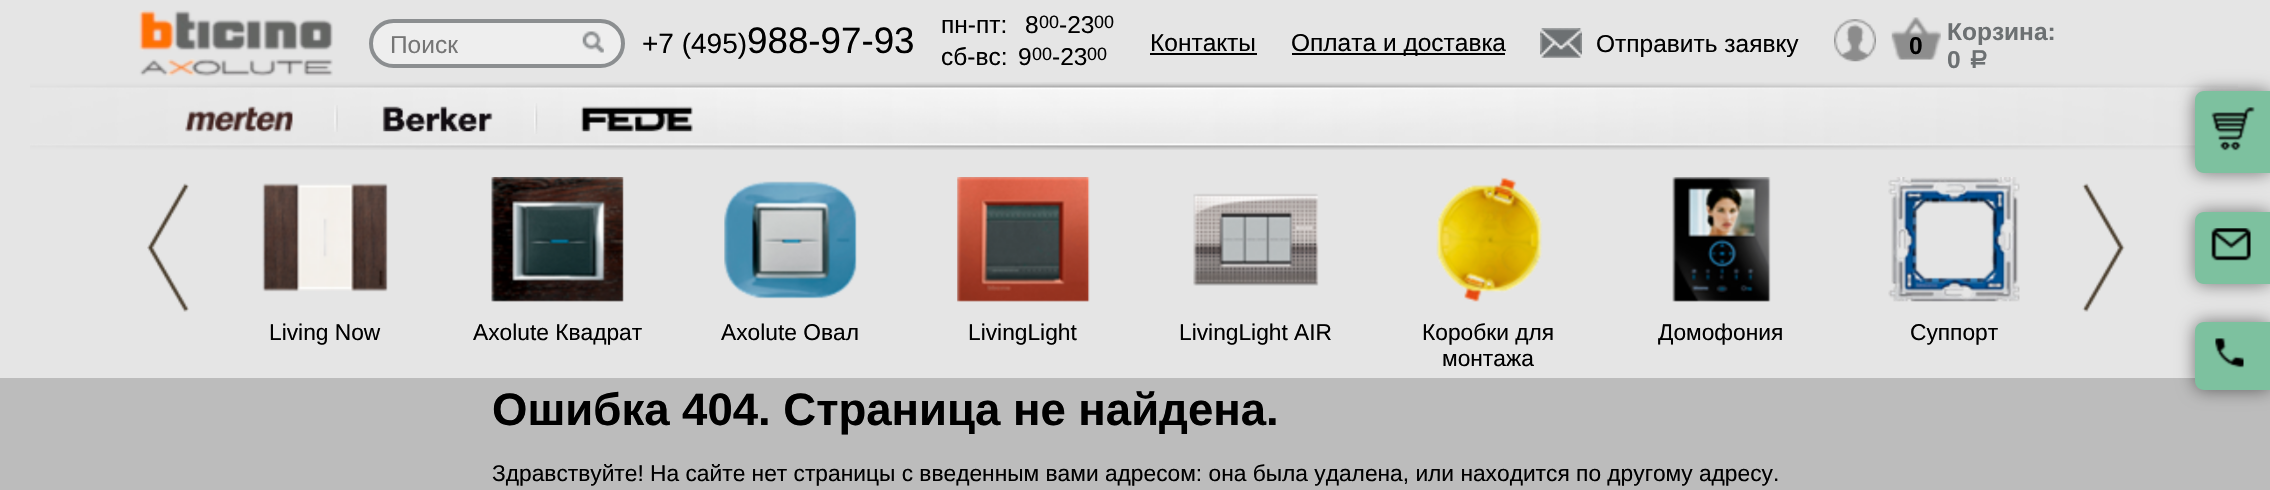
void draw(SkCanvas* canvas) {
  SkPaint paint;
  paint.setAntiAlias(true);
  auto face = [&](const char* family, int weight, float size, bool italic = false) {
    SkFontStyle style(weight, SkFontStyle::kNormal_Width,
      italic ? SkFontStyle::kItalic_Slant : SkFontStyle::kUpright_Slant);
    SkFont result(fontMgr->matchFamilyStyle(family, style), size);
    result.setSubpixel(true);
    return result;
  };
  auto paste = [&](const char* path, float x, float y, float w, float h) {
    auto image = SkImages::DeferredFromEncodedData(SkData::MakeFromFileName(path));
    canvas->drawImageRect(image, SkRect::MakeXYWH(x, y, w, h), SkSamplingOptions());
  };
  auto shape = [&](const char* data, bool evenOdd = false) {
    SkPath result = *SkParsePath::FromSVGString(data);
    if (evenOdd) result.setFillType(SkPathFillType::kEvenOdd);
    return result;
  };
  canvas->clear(0xffbcbcbc);
  paint.setColor(0xffe5e5e5);
  canvas->drawRect(SkRect::MakeXYWH(0, 0, 2270, 378), paint);
  paste("img/1.png", 138, 10, 195, 67);
  paint.setColor(0xffeeeeee);
  canvas->drawRoundRect(SkRect::MakeXYWH(371, 21, 252, 45), 22.5f, 22.5f, paint);
  paint.setStroke(true);
  paint.setStrokeWidth(4);
  paint.setColor(0xff8b8e90);
  canvas->drawRoundRect(SkRect::MakeXYWH(371, 21, 252, 45), 22.5f, 22.5f, paint);
  paste("img/2.png", 582, 31, 22, 22);
  paint.setStroke(false);
  paint.setColor(0xff000000);
  canvas->drawRect(SkRect::MakeXYWH(1150, 53, 107, 2), paint);
  canvas->drawRect(SkRect::MakeXYWH(1292, 53, 213, 2), paint);
  paste("img/3.png", 1540, 28, 42, 30);
  paste("img/4.png", 1834, 19, 42, 43);
  paste("img/5.png", 1891, 17, 50, 43);
  paste("img/6.png", 30, 82, 2208, 68);
  paste("img/7.png", 185, 106, 108, 26);
  paste("img/8.png", 334, 105, 4, 27);
  paste("img/9.png", 382, 106, 111, 26);
  paste("img/10.png", 534, 103, 4, 31);
  paste("img/11.png", 581, 106, 112, 26);
  paste("img/12.png", 147, 183, 42, 129);
  paste("img/13.png", 2082, 183, 43, 129);
  paste("img/14.png", 262, 183, 126, 109);
  paste("img/15.png", 491, 177, 133, 125);
  paste("img/16.png", 724, 181, 133, 118);
  paste("img/17.png", 957, 177, 133, 125);
  paste("img/18.png", 1193, 193, 126, 93);
  paste("img/19.png", 1436, 177, 107, 125);
  paste("img/20.png", 1672, 177, 99, 125);
  paste("img/21.png", 1888, 177, 132, 125);
  paint.setColor(0x80000000);
  paint.setMaskFilter(SkMaskFilter::MakeBlur(kNormal_SkBlurStyle, 9));
  canvas->drawRoundRect(SkRect::MakeXYWH(2195, 91, 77, 82), 9, 9, paint);
  paint.setMaskFilter(nullptr);
  paint.setColor(0xff7dc19f);
  canvas->drawPath(shape("M2204 91H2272V173H2204C2199 173 2195 169 2195 164V100C2195 95 2199 91 2204 91Z"), paint);
  paste("img/22.png", 2211, 107, 44, 44);
  paint.setColor(0x80000000);
  paint.setMaskFilter(SkMaskFilter::MakeBlur(kNormal_SkBlurStyle, 9));
  canvas->drawRoundRect(SkRect::MakeXYWH(2195, 212, 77, 72), 9, 9, paint);
  paint.setMaskFilter(nullptr);
  paint.setColor(0xff7dc19f);
  canvas->drawPath(shape("M2204 212H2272V284H2204C2199 284 2195 280 2195 275V221C2195 216 2199 212 2204 212Z"), paint);
  paste("img/23.png", 2211, 228, 40, 33);
  paint.setColor(0x80000000);
  paint.setMaskFilter(SkMaskFilter::MakeBlur(kNormal_SkBlurStyle, 9));
  canvas->drawRoundRect(SkRect::MakeXYWH(2195, 322, 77, 68), 9, 9, paint);
  paint.setMaskFilter(nullptr);
  paint.setColor(0xff7dc19f);
  canvas->drawPath(shape("M2204 322H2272V390H2204C2199 390 2195 386 2195 381V331C2195 326 2199 322 2204 322Z"), paint);
  paste("img/24.png", 2215, 338, 29, 30);
  auto f0 = face("Liberation Sans", 400, 24.5f);
  paint.setColor(0xff757575);
  canvas->drawString("Поиск", 390, 53, f0, paint);
  auto f1 = face("Liberation Sans", 400, 28);
  paint.setColor(0xff000000);
  canvas->drawString("+7 (495)", 642, 53, f1, paint);
  auto f2 = face("Liberation Sans", 400, 36.75f);
  canvas->drawString("988-97-93", 747, 53, f2, paint);
  canvas->drawString("пн-пт:", 941, 33, f0, paint);
  canvas->drawString("8", 1025, 33, f0, paint);
  auto f3 = face("Liberation Sans", 400, 18);
  canvas->drawString("00", 1039, 28, f3, paint);
  canvas->drawString("-23", 1059, 33, f0, paint);
  canvas->drawString("00", 1094, 28, f3, paint);
  canvas->drawString("сб-вс:", 941, 65, f0, paint);
  canvas->drawString("9", 1018, 65, f0, paint);
  canvas->drawString("00", 1032, 60, f3, paint);
  canvas->drawString("-23", 1052, 65, f0, paint);
  canvas->drawString("00", 1087, 60, f3, paint);
  {
    const struct { const char* s; float x, y; } items[] = {
      {"Контакты", 1150, 51},
      {"Оплата и доставка", 1291, 51},
      {"Отправить заявку", 1596, 52},
    };
    for (auto [s, x, y] : items) {
      canvas->drawString(s, x, y, f0, paint);
    }
  }
  auto f4 = face("Liberation Sans", 700, 24.5f);
  canvas->drawString("0", 1909, 54, f4, paint);
  paint.setColor(0xff6c7072);
  canvas->drawString("Корзина:", 1947, 40, f4, paint);
  canvas->drawString("0", 1947, 68, f4, paint);
  auto f5 = face("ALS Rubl", 700, 24.5f);
  canvas->drawString("a", 1967, 68, f5, paint);
  auto f6 = face("Liberation Sans", 400, 22.75f);
  paint.setColor(0xff000000);
  {
    const struct { const char* s; float x, y; } items[] = {
      {"Living Now", 269, 340},
      {"Axolute Квадрат", 473, 340},
      {"Axolute Овал", 721, 340},
      {"LivingLight", 968, 340},
      {"LivingLight AIR", 1179, 340},
      {"Коробки для", 1422, 340},
      {"монтажа", 1442, 366},
      {"Домофония", 1658, 340},
      {"Суппорт", 1910, 340},
    };
    for (auto [s, x, y] : items) {
      canvas->drawString(s, x, y, f6, paint);
    }
  }
  auto f7 = face("Liberation Sans", 700, 45.5f);
  canvas->drawString("Ошибка 404. Страница не найдена.", 492, 425, f7, paint);
  canvas->drawString("Здравствуйте! На сайте нет страницы с введенным вами адресом: она была удалена, или находится по другому адресу.", 492, 481, f6, paint);
}
